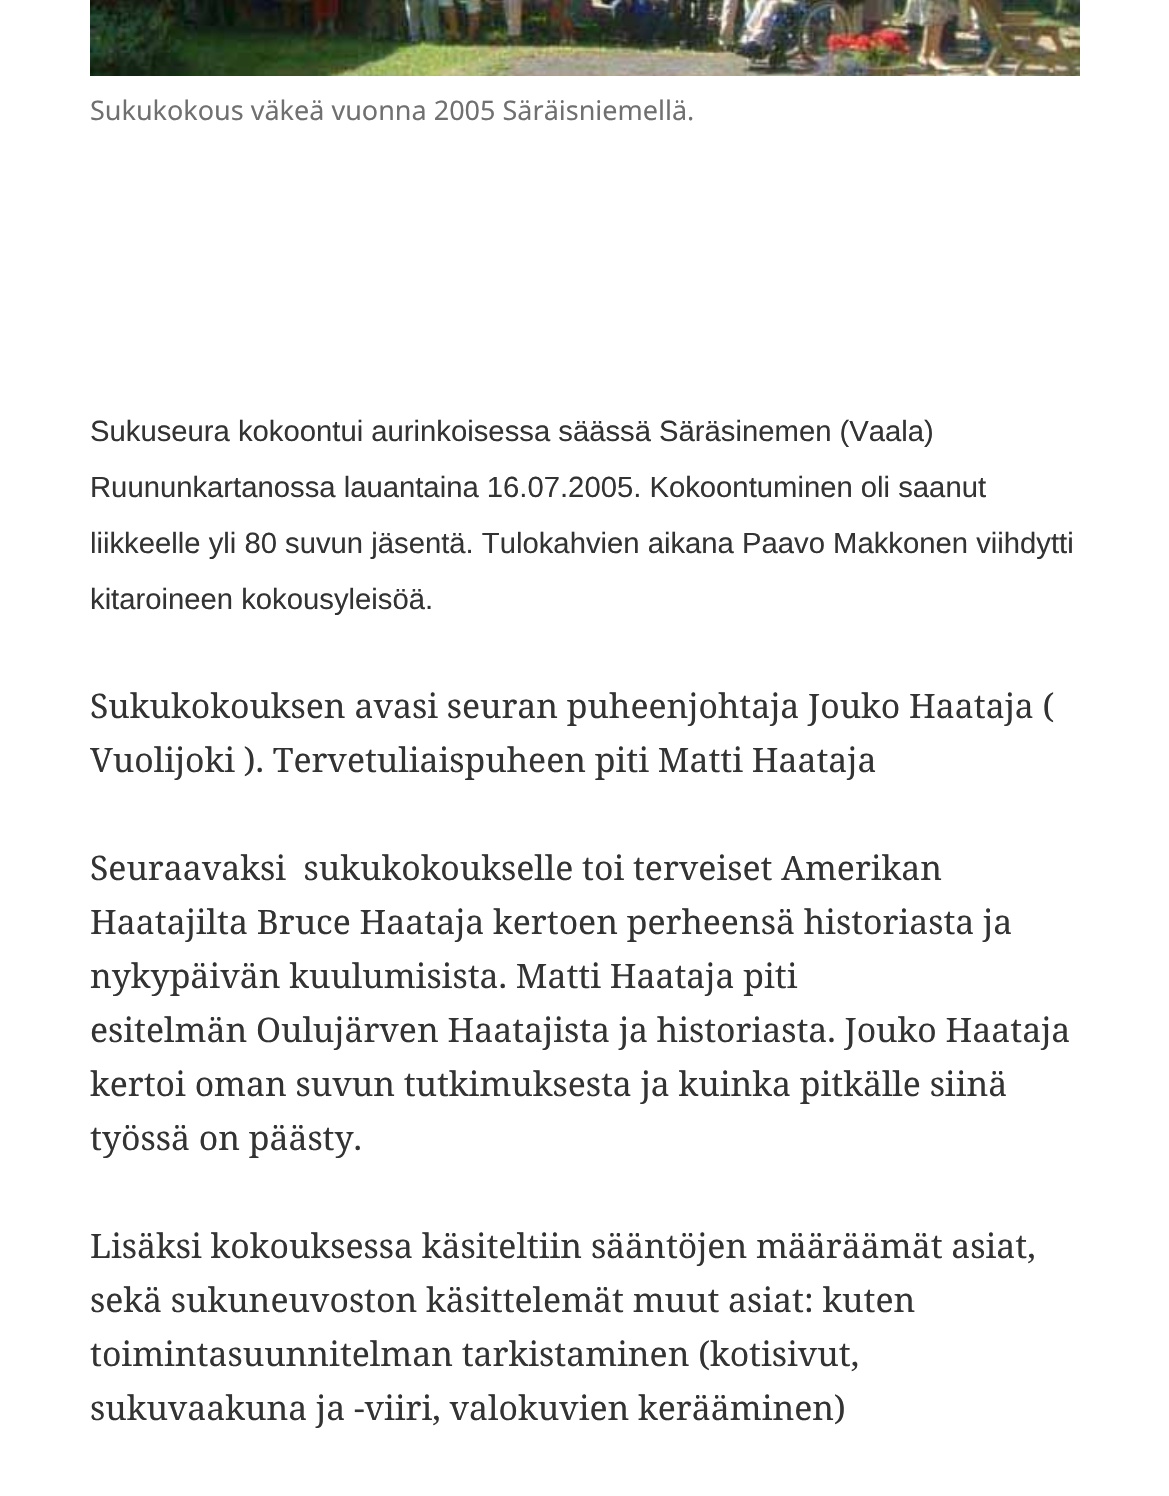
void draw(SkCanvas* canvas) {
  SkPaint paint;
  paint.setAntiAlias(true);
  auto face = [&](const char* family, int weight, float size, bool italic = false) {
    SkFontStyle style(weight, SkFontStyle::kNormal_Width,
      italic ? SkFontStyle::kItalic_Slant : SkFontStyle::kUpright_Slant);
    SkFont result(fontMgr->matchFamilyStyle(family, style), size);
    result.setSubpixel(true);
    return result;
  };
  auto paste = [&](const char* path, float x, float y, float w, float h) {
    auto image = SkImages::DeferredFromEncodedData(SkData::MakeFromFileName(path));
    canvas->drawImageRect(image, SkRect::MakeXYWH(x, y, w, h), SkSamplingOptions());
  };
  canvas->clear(0xffffffff);
  paste("img/1.png", 90, 0, 990, 76);
  auto f0 = face("Noto Sans", 400, 27);
  paint.setColor(0xff707070);
  canvas->drawString("Sukukokous väkeä vuonna 2005 Säräisniemellä.", 90, 120, f0, paint);
  auto f1 = face("Liberation Sans", 400, 29.25f);
  paint.setColor(0xff333333);
  {
    const struct { const char* s; float x, y; } items[] = {
      {"Sukuseura kokoontui aurinkoisessa säässä Säräsinemen (Vaala)", 90, 441},
      {"Ruununkartanossa lauantaina 16.07.2005. Kokoontuminen oli saanut", 90, 497},
      {"liikkeelle yli 80 suvun jäsentä. Tulokahvien aikana Paavo Makkonen viihdytti", 90, 553},
      {"kitaroineen kokousyleisöä.", 90, 609},
    };
    for (auto [s, x, y] : items) {
      canvas->drawString(s, x, y, f1, paint);
    }
  }
  auto f2 = face("Noto Serif", 400, 33.75f);
  {
    const struct { const char* s; float x, y; } items[] = {
      {"Sukukokouksen avasi seuran puheenjohtaja Jouko Haataja (", 90, 718},
      {"Vuolijoki ). Tervetuliaispuheen piti Matti Haataja", 90, 772},
      {"Seuraavaksi  sukukokoukselle toi terveiset Amerikan", 90, 880},
      {"Haatajilta Bruce Haataja kertoen perheensä historiasta ja", 90, 934},
      {"nykypäivän kuulumisista. Matti Haataja piti", 90, 988},
      {"esitelmän Oulujärven Haatajista ja historiasta. Jouko Haataja", 90, 1042},
      {"kertoi oman suvun tutkimuksesta ja kuinka pitkälle siinä", 90, 1096},
      {"työssä on päästy.", 90, 1150},
      {"Lisäksi kokouksessa käsiteltiin sääntöjen määräämät asiat,", 90, 1258},
      {"sekä sukuneuvoston käsittelemät muut asiat: kuten", 90, 1312},
      {"toimintasuunnitelman tarkistaminen (kotisivut,", 90, 1366},
      {"sukuvaakuna ja -viiri, valokuvien kerääminen)", 90, 1420},
    };
    for (auto [s, x, y] : items) {
      canvas->drawString(s, x, y, f2, paint);
    }
  }
}
